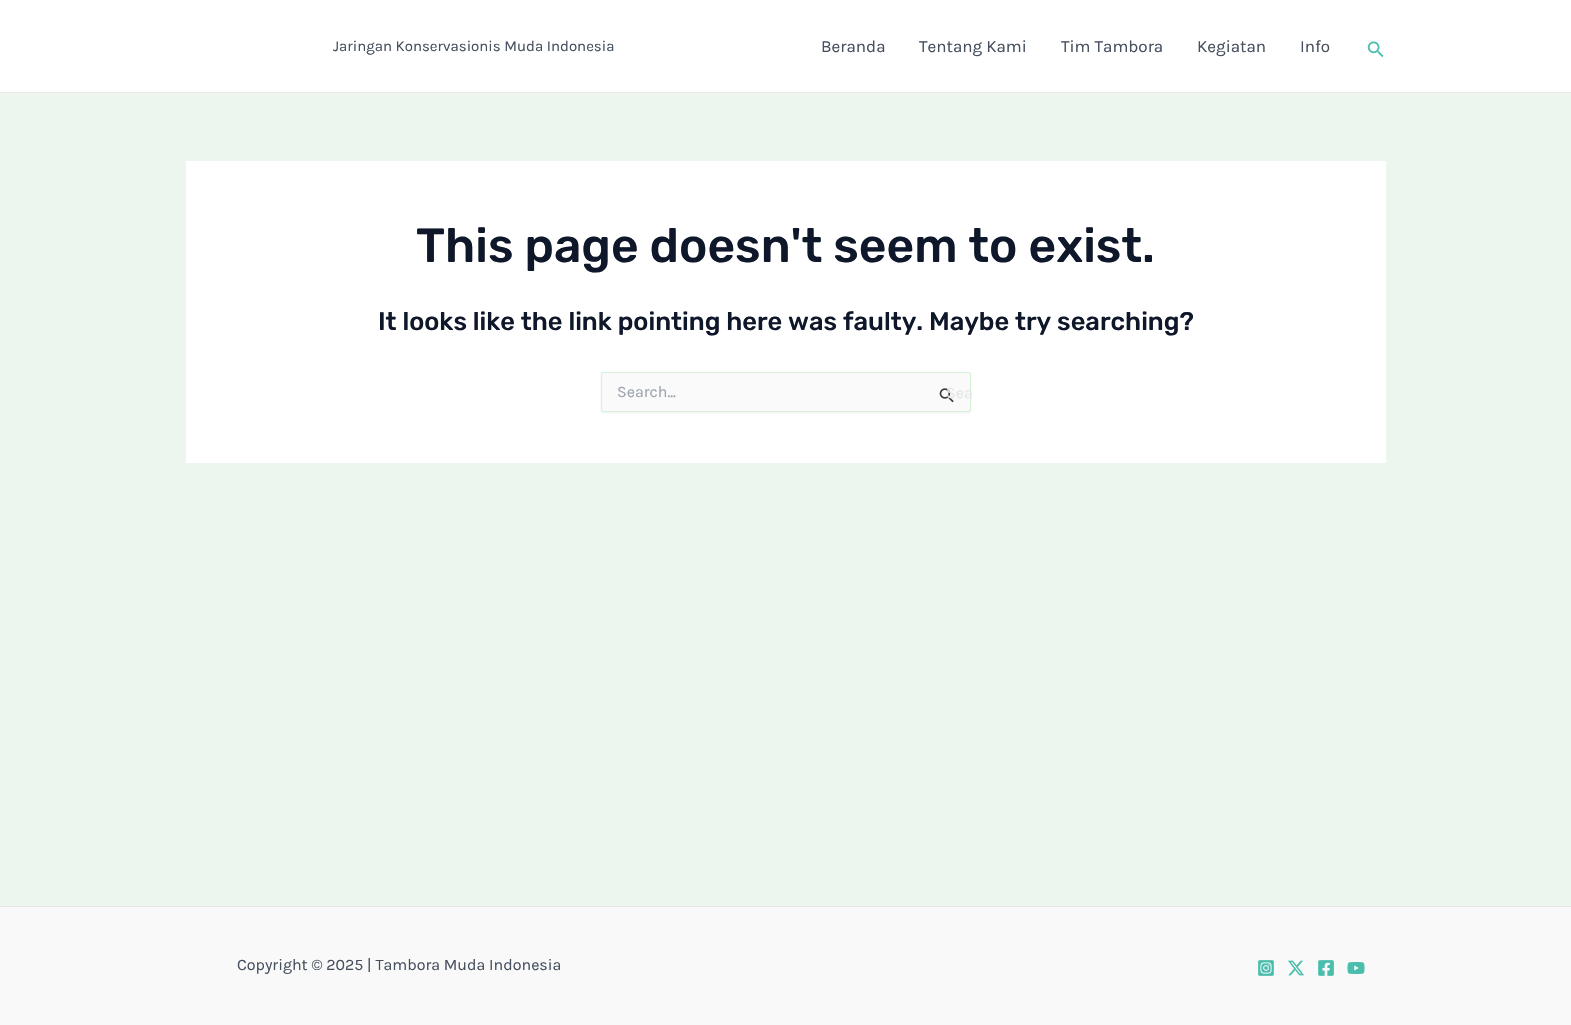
void draw(SkCanvas* canvas) {
  SkPaint paint;
  paint.setAntiAlias(true);
  auto face = [&](const char* family, int weight, float size, bool italic = false) {
    SkFontStyle style(weight, SkFontStyle::kNormal_Width,
      italic ? SkFontStyle::kItalic_Slant : SkFontStyle::kUpright_Slant);
    SkFont result(fontMgr->matchFamilyStyle(family, style), size);
    result.setSubpixel(true);
    return result;
  };
  auto paste = [&](const char* path, float x, float y, float w, float h) {
    auto image = SkImages::DeferredFromEncodedData(SkData::MakeFromFileName(path));
    canvas->drawImageRect(image, SkRect::MakeXYWH(x, y, w, h), SkSamplingOptions());
  };
  canvas->clear(0xffedf6ee);
  paint.setColor(0xffffffff);
  canvas->drawRect(SkRect::MakeXYWH(0, 0, 1571, 92), paint);
  paint.setColor(0xffeaeaea);
  canvas->drawRect(SkRect::MakeXYWH(0, 92, 1571, 1), paint);
  paste("img/1.png", 1367, 41, 17, 17);
  paint.setColor(0xffffffff);
  canvas->drawRect(SkRect::MakeXYWH(186, 161, 1200, 302), paint);
  paint.setColor(0x0d000000);
  paint.setMaskFilter(SkMaskFilter::MakeBlur(kNormal_SkBlurStyle, 1));
  canvas->drawRoundRect(SkRect::MakeXYWH(601, 373, 370, 40), 2, 2, paint);
  paint.setMaskFilter(nullptr);
  paint.setColor(0xfffafafa);
  canvas->drawRoundRect(SkRect::MakeXYWH(601.5f, 372.5f, 369, 39), 1.5f, 1.5f, paint);
  paint.setStroke(true);
  paint.setStrokeWidth(1);
  paint.setColor(0xffd4f3d7);
  canvas->drawRoundRect(SkRect::MakeXYWH(601.5f, 372.5f, 369, 39), 1.5f, 1.5f, paint);
  paste("img/2.png", 939, 388, 15, 15);
  paint.setStroke(false);
  paint.setColor(0xfff9f9f9);
  canvas->drawRect(SkRect::MakeXYWH(0, 907, 1571, 118), paint);
  paint.setColor(0xffe6e6e6);
  canvas->drawRect(SkRect::MakeXYWH(0, 906, 1571, 1), paint);
  paste("img/3.png", 1258, 960, 16, 16);
  paste("img/4.png", 1288, 960, 16, 16);
  paste("img/5.png", 1318, 960, 16, 16);
  paste("img/6.png", 1347, 962, 18, 12);
  auto f0 = face("Karla", 400, 15);
  paint.setColor(0xff454f5e);
  canvas->drawString("Jaringan Konservasionis Muda Indonesia", 333, 51, f0, paint);
  auto f1 = face("Karla", 400, 17);
  {
    const struct { const char* s; float x, y; } items[] = {
      {"Beranda", 821, 52},
      {"Tentang Kami", 919, 52},
      {"Tim Tambora", 1061, 52},
      {"Kegiatan", 1197, 52},
      {"Info", 1300, 52},
    };
    for (auto [s, x, y] : items) {
      canvas->drawString(s, x, y, f1, paint);
    }
  }
  auto f2 = face("Rubik", 500, 48);
  paint.setColor(0xff0f172a);
  canvas->drawString("This page doesn't seem to exist.", 416, 262, f2, paint);
  auto f3 = face("Rubik", 500, 25.5f);
  canvas->drawString("It looks like the link pointing here was faulty. Maybe try searching?", 378, 330, f3, paint);
  auto f4 = face("Karla", 400, 16);
  paint.setColor(0xff9ca3af);
  canvas->drawString("Search...", 617, 397, f4, paint);
  paint.setColor(0xffe5e6e5);
  canvas->drawString("Sea", 946, 398, f4, paint);
  paint.setColor(0xff454f5e);
  canvas->drawString("Copyright © 2025 | Tambora Muda Indonesia", 237, 970, f4, paint);
}
